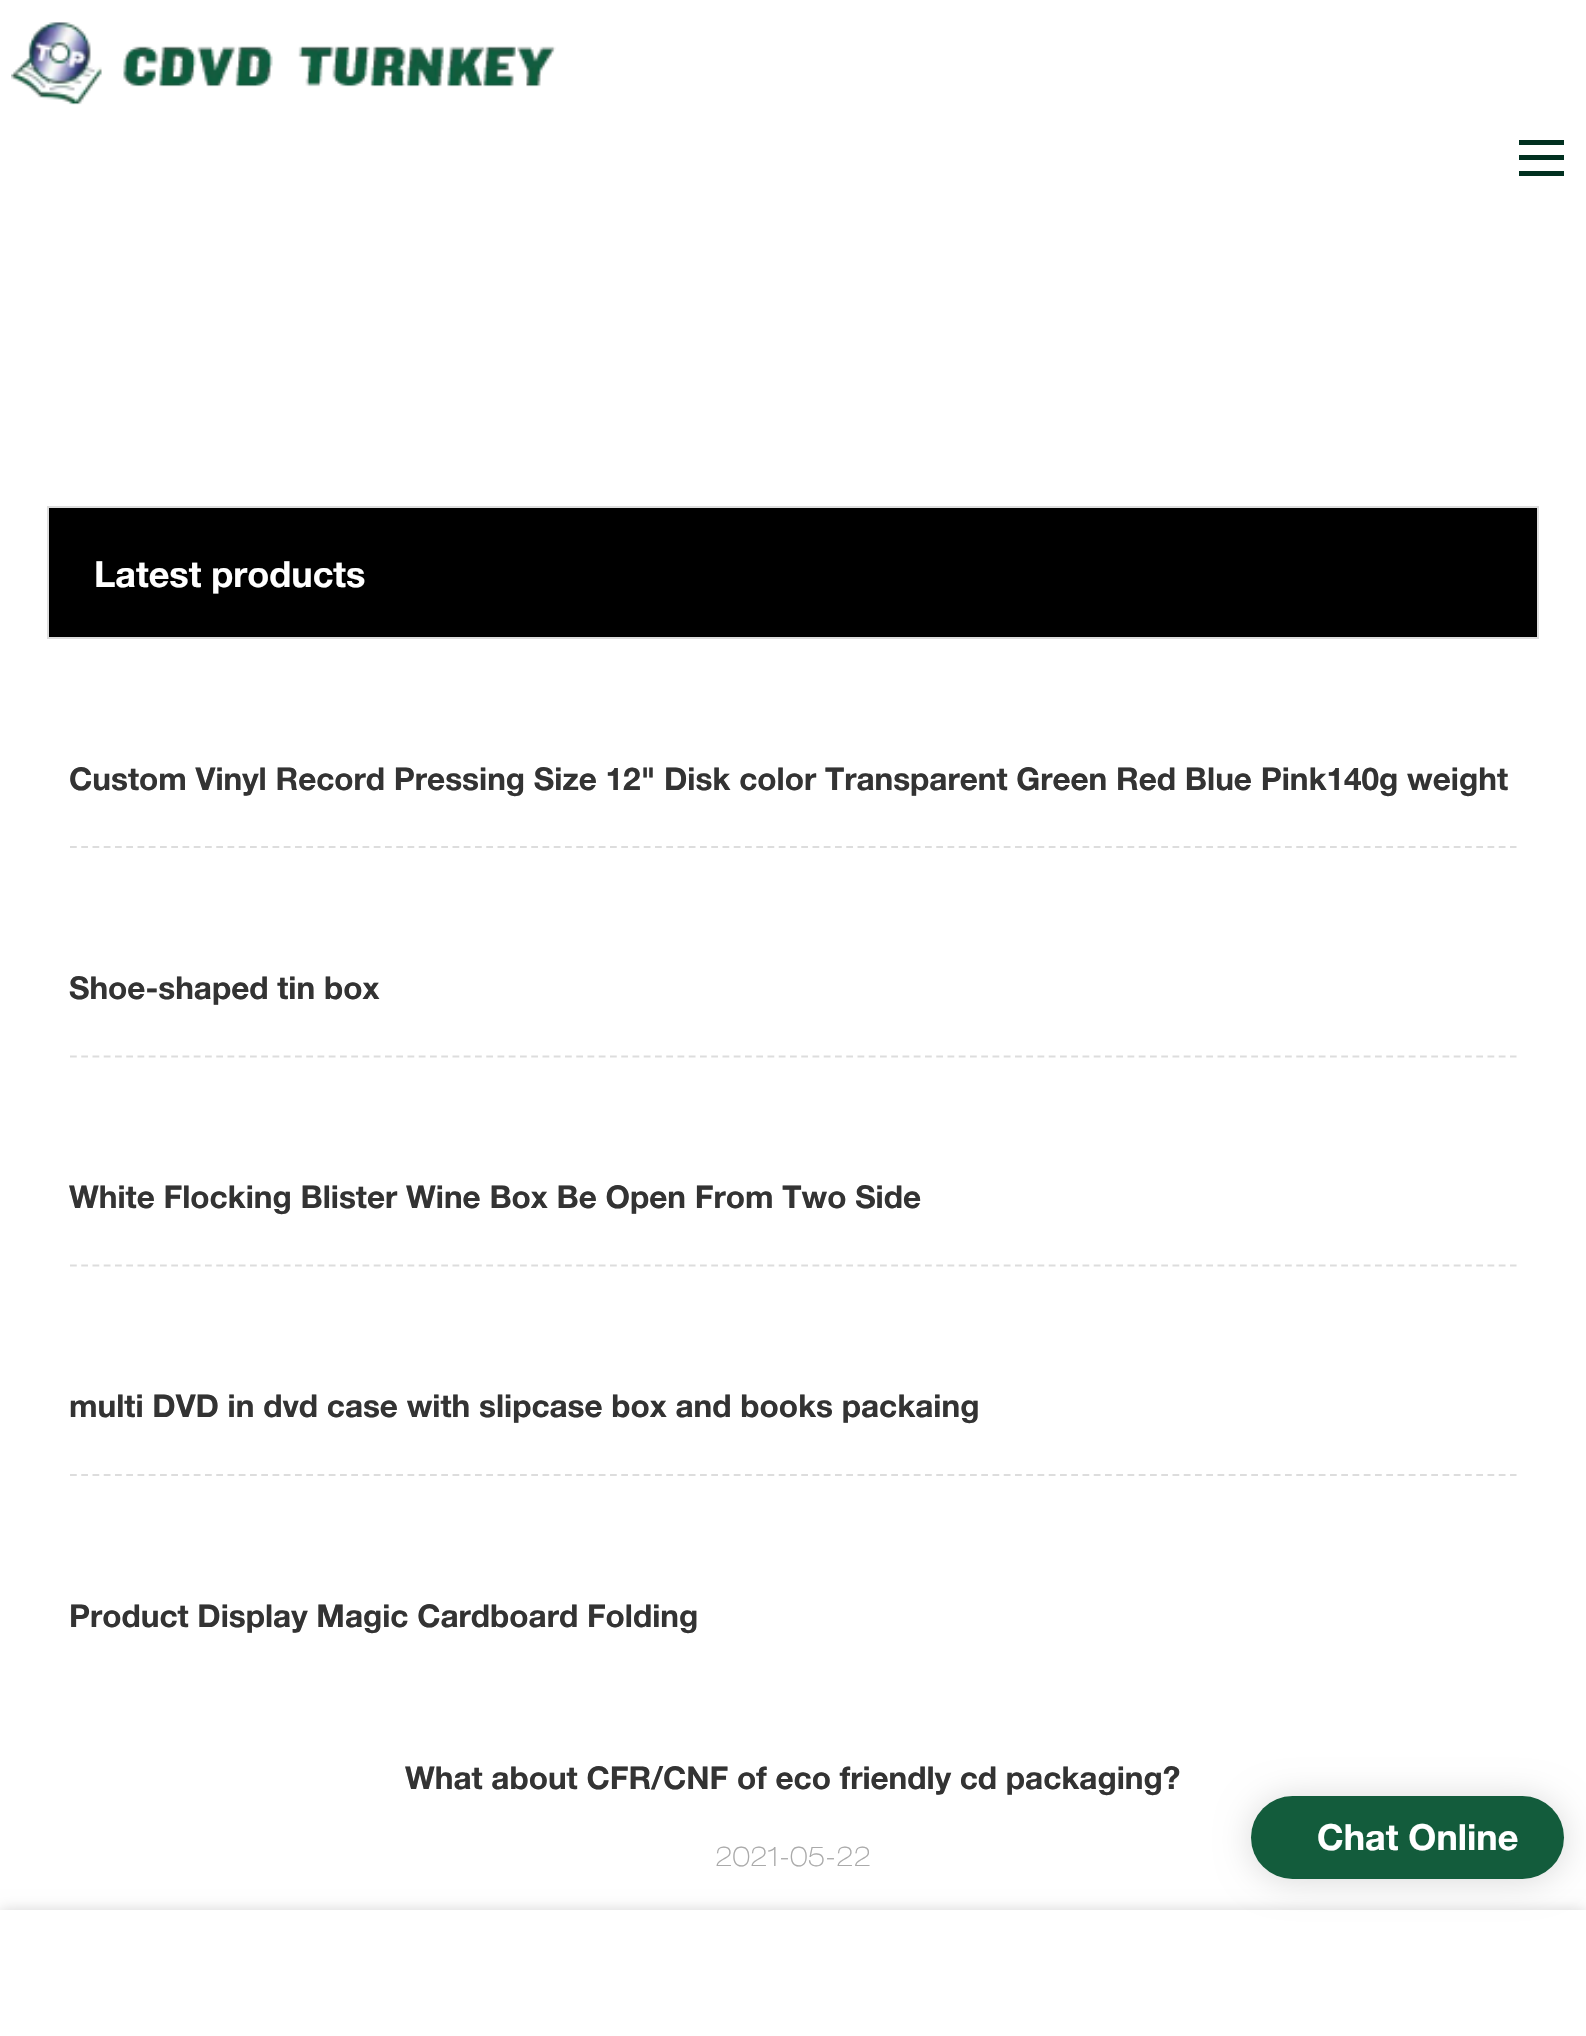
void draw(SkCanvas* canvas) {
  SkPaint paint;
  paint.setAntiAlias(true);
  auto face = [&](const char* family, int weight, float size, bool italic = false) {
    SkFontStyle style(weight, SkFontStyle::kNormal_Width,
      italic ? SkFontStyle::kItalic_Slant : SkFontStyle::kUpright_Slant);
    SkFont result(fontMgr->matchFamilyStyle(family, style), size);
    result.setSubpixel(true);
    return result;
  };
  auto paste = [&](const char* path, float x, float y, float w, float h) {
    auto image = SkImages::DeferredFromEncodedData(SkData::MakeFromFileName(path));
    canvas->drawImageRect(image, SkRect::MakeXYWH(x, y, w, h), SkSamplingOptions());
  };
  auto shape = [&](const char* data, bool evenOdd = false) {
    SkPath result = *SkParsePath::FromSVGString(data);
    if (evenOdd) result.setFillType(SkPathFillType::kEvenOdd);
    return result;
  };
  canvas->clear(0xffffffff);
  paste("img/1.png", 11, 22, 545, 83);
  {
    const struct { float x, y, w, h; SkColor color; } items[] = {
      {1519, 140, 45, 5, 0xff013020},
      {1519, 155, 45, 5, 0xff013020},
      {1519, 171, 45, 5, 0xff013020},
    };
    for (auto [x, y, w, h, color] : items) {
      paint.setColor(color);
      canvas->drawRect(SkRect::MakeXYWH(x, y, w, h), paint);
    }
  }
  paint.setColor(0xff000000);
  canvas->drawRect(SkRect::MakeXYWH(48, 507, 1490, 131), paint);
  paint.setStroke(true);
  paint.setStrokeWidth(2);
  paint.setColor(0xffdddddd);
  canvas->drawRect(SkRect::MakeXYWH(48, 507, 1490, 131), paint);
  paint.setStrokeWidth(2.2f);
  paint.setPathEffect(SkDashPathEffect::Make({{6.75f, 4.5f}}, 0));
  canvas->drawPath(shape("M70 847H1516.5"), paint);
  paint.setPathEffect(nullptr);
  paint.setPathEffect(SkDashPathEffect::Make({{6.75f, 4.5f}}, 0));
  canvas->drawPath(shape("M70 1056.5H1516.5"), paint);
  paint.setPathEffect(nullptr);
  paint.setPathEffect(SkDashPathEffect::Make({{6.75f, 4.5f}}, 0));
  canvas->drawPath(shape("M70 1265.5H1516.5"), paint);
  paint.setPathEffect(nullptr);
  paint.setPathEffect(SkDashPathEffect::Make({{6.75f, 4.5f}}, 0));
  canvas->drawPath(shape("M70 1475H1516.5"), paint);
  paint.setPathEffect(nullptr);
  paint.setStroke(false);
  paint.setColor(0x29000000);
  paint.setMaskFilter(SkMaskFilter::MakeBlur(kNormal_SkBlurStyle, 7));
  canvas->drawRect(SkRect::MakeXYWH(0, 1910, 1586, 126), paint);
  paint.setMaskFilter(nullptr);
  paint.setColor(0xffffffff);
  canvas->drawRect(SkRect::MakeXYWH(0, 1910, 1586, 126), paint);
  paint.setColor(0x26000000);
  paint.setMaskFilter(SkMaskFilter::MakeBlur(kNormal_SkBlurStyle, 17));
  canvas->drawRoundRect(SkRect::MakeXYWH(1251, 1798, 313, 83), 41.5f, 41.5f, paint);
  paint.setMaskFilter(nullptr);
  paint.setColor(0xff135c3c);
  canvas->drawRoundRect(SkRect::MakeXYWH(1251, 1796, 313, 83), 41.5f, 41.5f, paint);
  auto f0 = face("Helvetica Neue", 700, 36);
  paint.setColor(0xffffffff);
  canvas->drawString("Latest products", 94, 587, f0, paint);
  auto f1 = face("Helvetica Neue", 700, 31.5f);
  paint.setColor(0xff333333);
  {
    const struct { const char* s; float x, y; } items[] = {
      {"Custom Vinyl Record Pressing Size 12\" Disk color Transparent Green Red Blue Pink140g weight", 69, 790},
      {"Shoe-shaped tin box", 69, 999},
      {"White Flocking Blister Wine Box Be Open From Two Side", 69, 1208},
      {"multi DVD in dvd case with slipcase box and books packaing", 69, 1417},
      {"Product Display Magic Cardboard Folding", 69, 1627},
      {"What about CFR/CNF of eco friendly cd packaging?", 405, 1789},
    };
    for (auto [s, x, y] : items) {
      canvas->drawString(s, x, y, f1, paint);
    }
  }
  auto f2 = face("Helvetica Neue", 200, 27);
  paint.setColor(0xffaaaaaa);
  canvas->drawString("2021-05-22", 715, 1866, f2, paint);
  paint.setColor(0xffffffff);
  canvas->drawString("Chat Online", 1317, 1850, f0, paint);
}
